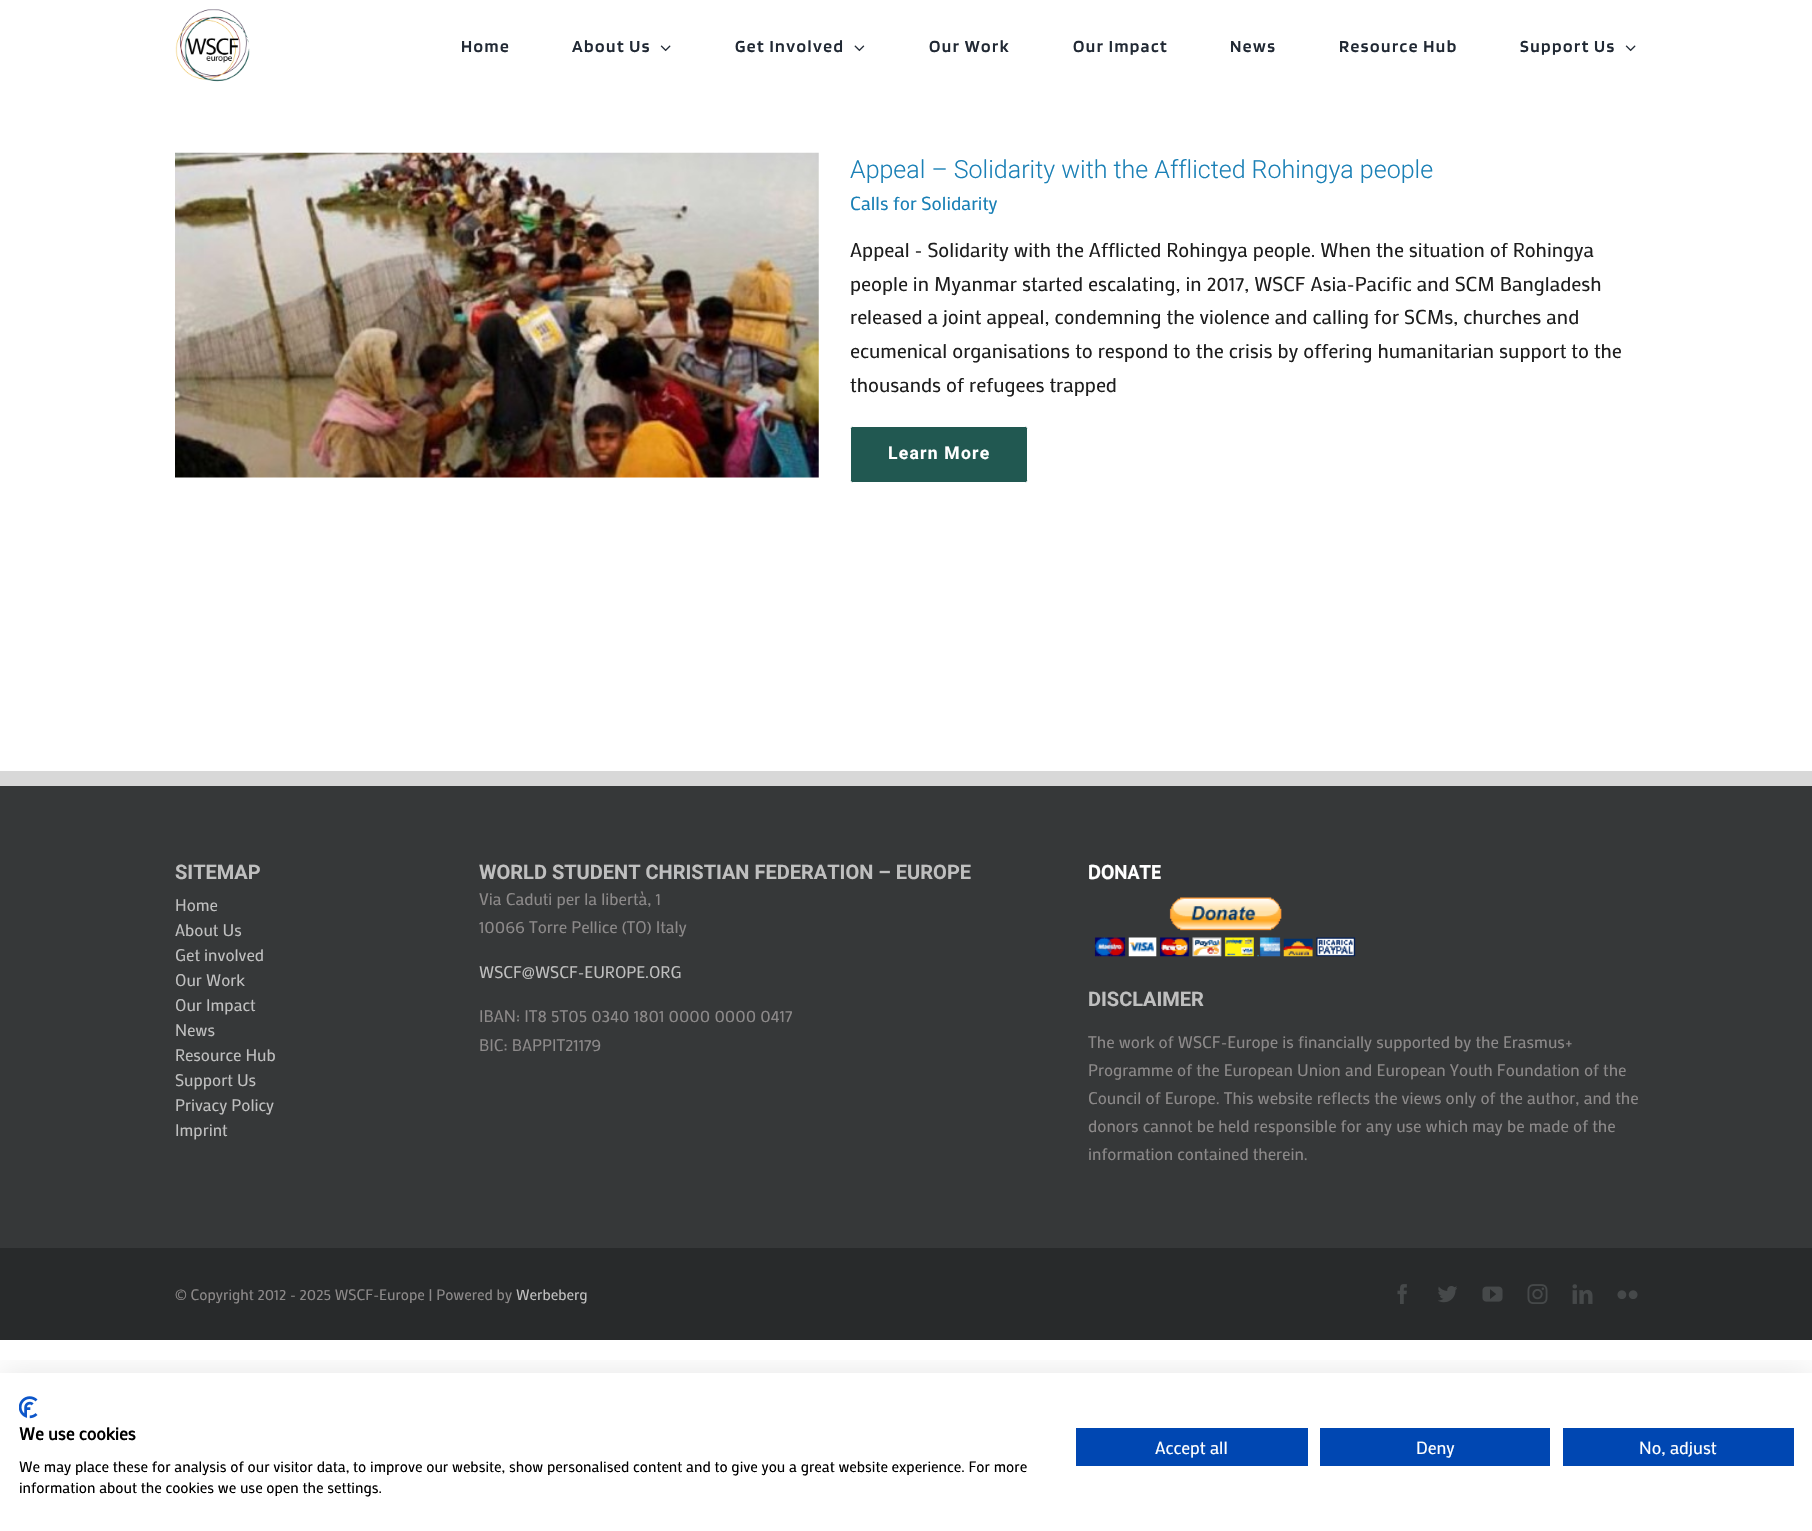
void draw(SkCanvas* canvas) {
  SkPaint paint;
  paint.setAntiAlias(true);
  auto face = [&](const char* family, int weight, float size, bool italic = false) {
    SkFontStyle style(weight, SkFontStyle::kNormal_Width,
      italic ? SkFontStyle::kItalic_Slant : SkFontStyle::kUpright_Slant);
    SkFont result(fontMgr->matchFamilyStyle(family, style), size);
    result.setSubpixel(true);
    return result;
  };
  auto writeSpaced = [&](const char* s, float x, float y, const SkFont& font, const SkPaint& ink, float letter, float word) {
    std::vector<SkGlyphID> glyphs(font.countText(s, strlen(s), SkTextEncoding::kUTF8));
    std::vector<float> xs(glyphs.size());
    font.textToGlyphs(s, strlen(s), SkTextEncoding::kUTF8, glyphs);
    font.getXPos(glyphs, xs, x);
    float extra = 0;
    for (size_t i = 0; i < glyphs.size(); i++) {
      xs[i] += extra;
      extra += letter + word * (glyphs[i] == font.unicharToGlyph(' '));
    }
    canvas->drawTextBlob(SkTextBlob::MakeFromPosHGlyphs(glyphs, xs, y, font), 0, 0, ink);
  };
  auto paste = [&](const char* path, float x, float y, float w, float h) {
    auto image = SkImages::DeferredFromEncodedData(SkData::MakeFromFileName(path));
    canvas->drawImageRect(image, SkRect::MakeXYWH(x, y, w, h), SkSamplingOptions());
  };
  canvas->clear(0xffffffff);
  paste("img/1.png", 175, 9, 75, 73);
  paste("img/2.png", 660, 45, 11, 7);
  paste("img/3.png", 854, 45, 11, 7);
  paste("img/2.png", 1625, 45, 11, 7);
  paste("img/4.png", 175, 152, 644, 326);
  paint.setColor(0xff215851);
  canvas->drawRoundRect(SkRect::MakeXYWH(850.5f, 426.5f, 177, 56), 2, 2, paint);
  paint.setStroke(true);
  paint.setStrokeWidth(1);
  paint.setColor(0xffffffff);
  canvas->drawRoundRect(SkRect::MakeXYWH(850.5f, 426.5f, 177, 56), 2, 2, paint);
  paint.setStroke(false);
  paint.setColor(0xff363839);
  canvas->drawRect(SkRect::MakeXYWH(0, 786, 1812, 462), paint);
  paint.setColor(0xffd8d8d8);
  canvas->drawRect(SkRect::MakeXYWH(0, 771, 1812, 15), paint);
  paste("img/5.png", 1094, 897, 262, 60);
  paint.setColor(0xff282a2b);
  canvas->drawRect(SkRect::MakeXYWH(0, 1248, 1812, 92), paint);
  paste("img/6.png", 1397, 1284, 10, 20);
  paste("img/7.png", 1438, 1286, 19, 17);
  paste("img/8.png", 1482, 1286, 21, 16);
  paste("img/9.png", 1527, 1284, 21, 20);
  paste("img/10.png", 1572, 1284, 21, 20);
  paste("img/11.png", 1617, 1290, 21, 9);
  canvas->save();
  canvas->clipRect(SkRect::MakeXYWH(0, 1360, 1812, 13));
  paint.setColor(0x1a000000);
  paint.setMaskFilter(SkMaskFilter::MakeBlur(kNormal_SkBlurStyle, 15));
  canvas->drawRect(SkRect::MakeXYWH(0, 1373, 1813, 158), paint);
  paint.setMaskFilter(nullptr);
  canvas->restore();
  paste("img/12.png", 19, 1396, 19, 23);
  {
    const struct { float x, y, w, h; SkColor color; } items[] = {
      {1076, 1428, 232, 38, 0xff0047b2},
      {1320, 1428, 230, 38, 0xff0047b2},
      {1563, 1428, 231, 38, 0xff0047b2},
    };
    for (auto [x, y, w, h, color] : items) {
      paint.setColor(color);
      canvas->drawRect(SkRect::MakeXYWH(x, y, w, h), paint);
    }
  }
  auto f0 = face("Blinker", 600, 17.5f);
  paint.setColor(0xff212934);
  {
    const struct { const char* s; float x, y; } items[] = {
      {"Home", 461, 52},
      {"About Us", 572, 52},
      {"Get Involved", 735, 52},
      {"Our Work", 929, 52},
      {"Our Impact", 1073, 52},
      {"News", 1230, 52},
      {"Resource Hub", 1339, 52},
      {"Support Us", 1520, 52},
    };
    for (auto [s, x, y] : items) {
      writeSpaced(s, x, y, f0, paint, 1.5f, 0);
    }
  }
  auto f1 = face("Roboto", 300, 25);
  paint.setColor(0xff1a80b6);
  canvas->drawString("Appeal – Solidarity with the Afflicted Rohingya people", 850, 178, f1, paint);
  auto f2 = face("Mako", 400, 18.75f);
  canvas->drawString("Calls for Solidarity", 850, 210, f2, paint);
  auto f3 = face("Mako", 400, 20);
  paint.setColor(0xff1e1e1e);
  {
    const struct { const char* s; float x, y; } items[] = {
      {"Appeal - Solidarity with the Afflicted Rohingya people. When the situation of Rohingya", 850, 257},
      {"people in Myanmar started escalating, in 2017, WSCF Asia-Pacific and SCM Bangladesh", 850, 291},
      {"released a joint appeal, condemning the violence and calling for SCMs, churches and", 850, 324},
      {"ecumenical organisations to respond to the crisis by offering humanitarian support to the", 850, 358},
      {"thousands of refugees trapped", 850, 392},
    };
    for (auto [s, x, y] : items) {
      canvas->drawString(s, x, y, f3, paint);
    }
  }
  auto f4 = face("Roboto", 700, 17.5f);
  paint.setColor(0xffffffff);
  writeSpaced("Learn More", 888, 459, f4, paint, 1.25f, 0);
  auto f5 = face("Roboto", 700, 20);
  paint.setColor(0xffbfbfbf);
  canvas->drawString("SITEMAP", 175, 879, f5, paint);
  auto f6 = face("Mako", 400, 16.7f);
  {
    const struct { const char* s; float x, y; } items[] = {
      {"Home", 175, 911},
      {"About Us", 175, 936},
      {"Get involved", 175, 961},
      {"Our Work", 175, 986},
      {"Our Impact", 175, 1011},
      {"News", 175, 1036},
      {"Resource Hub", 175, 1061},
      {"Support Us", 175, 1086},
      {"Privacy Policy", 175, 1111},
      {"Imprint", 175, 1136},
    };
    for (auto [s, x, y] : items) {
      canvas->drawString(s, x, y, f6, paint);
    }
  }
  canvas->drawString("WORLD STUDENT CHRISTIAN FEDERATION – EUROPE", 479, 879, f5, paint);
  paint.setColor(0xff8c8989);
  canvas->drawString("Via Caduti per la libertà, 1", 479, 905, f6, paint);
  canvas->drawString("10066 Torre Pellice (TO) Italy", 479, 933, f6, paint);
  paint.setColor(0xffbfbfbf);
  canvas->drawString("WSCF@WSCF-EUROPE.ORG", 479, 978, f6, paint);
  paint.setColor(0xff8c8989);
  canvas->drawString("IBAN: IT8 5T05 0340 1801 0000 0000 0417", 479, 1022, f6, paint);
  canvas->drawString("BIC: BAPPIT21179", 479, 1051, f6, paint);
  auto f7 = face("PT Sans", 700, 20);
  paint.setColor(0xffffffff);
  canvas->drawString("DONATE", 1088, 879, f7, paint);
  paint.setColor(0xffbfbfbf);
  canvas->drawString("DISCLAIMER", 1088, 1006, f5, paint);
  paint.setColor(0xff8c8989);
  {
    const struct { const char* s; float x, y; } items[] = {
      {"The work of WSCF-Europe is financially supported by the Erasmus+", 1088, 1048},
      {"Programme of the European Union and European Youth Foundation of the", 1088, 1076},
      {"Council of Europe. This website reflects the views only of the author, and the", 1088, 1104},
      {"donors cannot be held responsible for any use which may be made of the", 1088, 1132},
      {"information contained therein.", 1088, 1160},
    };
    for (auto [s, x, y] : items) {
      canvas->drawString(s, x, y, f6, paint);
    }
  }
  auto f8 = face("Mako", 400, 15);
  canvas->drawString("© Copyright 2012 - 2025 WSCF-Europe | Powered by", 175, 1300, f8, paint);
  paint.setColor(0xffbfbfbf);
  canvas->drawString("Werbeberg", 516, 1300, f8, paint);
  auto f9 = face("Mako", 700, 17.5f);
  paint.setColor(0xff000000);
  canvas->drawString("We use cookies", 19, 1440, f9, paint);
  canvas->drawString("We may place these for analysis of our visitor data, to improve our website, show personalised content and to give you a great website experience. For more", 19, 1472, f8, paint);
  canvas->drawString("information about the cookies we use open the settings.", 19, 1493, f8, paint);
  auto f10 = face("Mako", 400, 17.5f);
  paint.setColor(0xffffffff);
  {
    const struct { const char* s; float x, y; } items[] = {
      {"Accept all", 1155, 1454},
      {"Deny", 1416, 1454},
      {"No, adjust", 1639, 1454},
    };
    for (auto [s, x, y] : items) {
      canvas->drawString(s, x, y, f10, paint);
    }
  }
}
